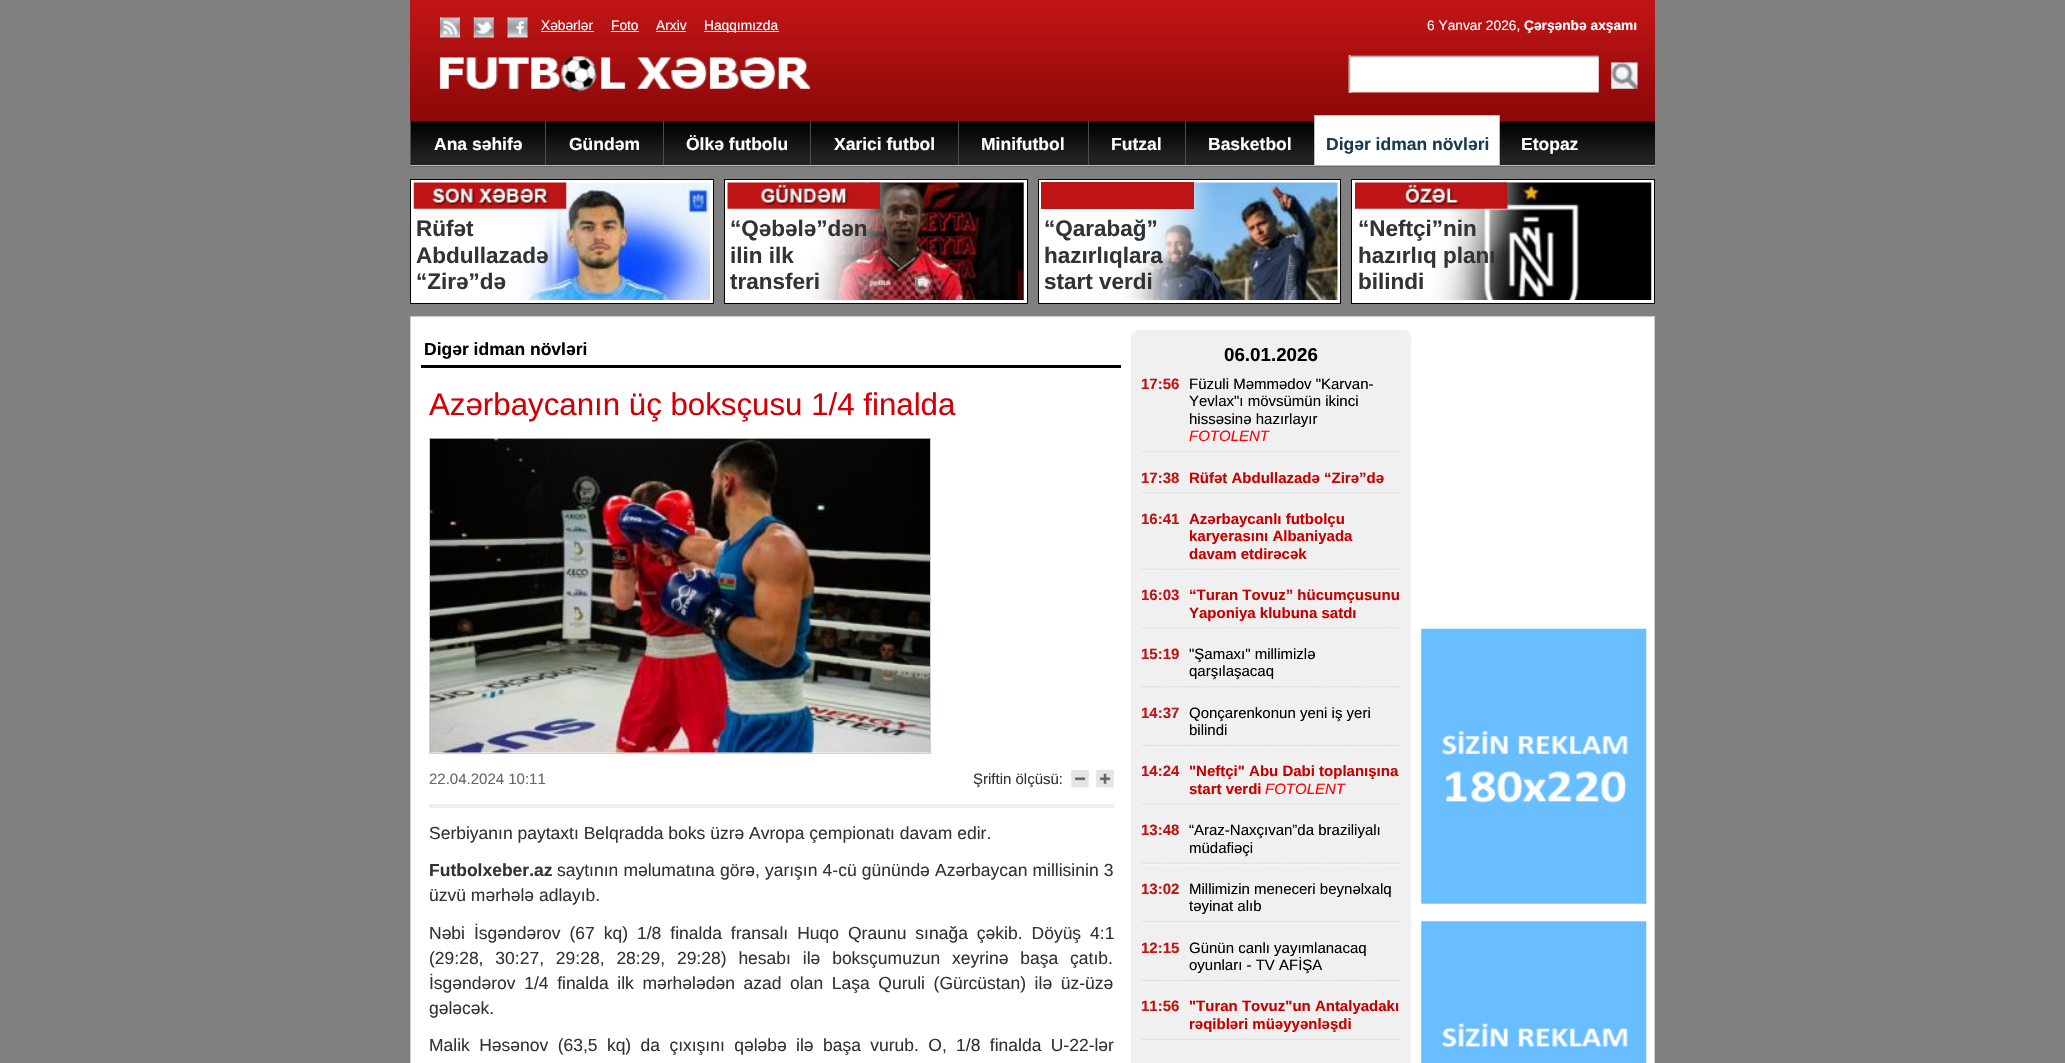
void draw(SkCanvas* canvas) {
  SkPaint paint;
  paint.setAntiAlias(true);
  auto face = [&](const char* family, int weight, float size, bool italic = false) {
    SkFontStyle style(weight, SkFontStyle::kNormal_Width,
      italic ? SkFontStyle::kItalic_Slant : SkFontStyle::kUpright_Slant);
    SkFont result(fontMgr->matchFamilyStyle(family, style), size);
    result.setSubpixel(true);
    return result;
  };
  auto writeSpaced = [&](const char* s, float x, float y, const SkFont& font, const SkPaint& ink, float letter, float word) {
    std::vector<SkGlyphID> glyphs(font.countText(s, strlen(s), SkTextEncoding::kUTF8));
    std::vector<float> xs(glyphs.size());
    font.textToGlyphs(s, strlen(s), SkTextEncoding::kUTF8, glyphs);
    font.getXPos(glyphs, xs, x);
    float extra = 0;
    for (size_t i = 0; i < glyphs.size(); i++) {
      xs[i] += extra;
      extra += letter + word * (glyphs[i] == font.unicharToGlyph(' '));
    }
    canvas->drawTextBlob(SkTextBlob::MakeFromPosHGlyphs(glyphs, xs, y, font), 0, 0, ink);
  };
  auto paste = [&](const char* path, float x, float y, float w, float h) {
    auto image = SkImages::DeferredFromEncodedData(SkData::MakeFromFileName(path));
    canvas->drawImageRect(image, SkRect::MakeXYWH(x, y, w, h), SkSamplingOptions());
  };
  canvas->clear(0xff808080);
  paste("img/1.png", 410, 0, 1245, 122);
  paste("img/2.png", 440, 17, 20, 21);
  paste("img/3.png", 473, 17, 21, 21);
  paste("img/4.png", 507, 17, 21, 21);
  {
    const struct { float x, y, w, h; SkColor color; } items[] = {
      {541, 31, 53, 1, 0xffffffff},
      {611, 31, 28, 1, 0xffffffff},
      {656, 31, 30, 1, 0xffffffff},
      {704, 31, 75, 1, 0xffffffff},
    };
    for (auto [x, y, w, h, color] : items) {
      paint.setColor(color);
      canvas->drawRect(SkRect::MakeXYWH(x, y, w, h), paint);
    }
  }
  paste("img/5.png", 439, 56, 371, 36);
  paste("img/6.png", 1348, 55, 251, 38);
  paste("img/7.png", 1348, 55, 5, 38);
  paste("img/8.png", 1611, 62, 27, 27);
  paste("img/9.png", 410, 121, 1245, 46);
  {
    const struct { float x, y, w, h; SkColor color; } items[] = {
      {410, 165, 1245, 1, 0xffbababa},
      {410, 121, 1, 44, 0xff4d4d4d},
      {545, 121, 1, 44, 0xff4d4d4d},
      {663, 121, 1, 44, 0xff4d4d4d},
      {810, 121, 1, 44, 0xff4d4d4d},
      {958, 121, 1, 44, 0xff4d4d4d},
      {1088, 121, 1, 44, 0xff4d4d4d},
      {1185, 121, 1, 44, 0xff4d4d4d},
      {1315, 116, 184, 49, 0xffffffff},
      {1314, 115, 186, 1, 0xffbbbbbb},
      {1499, 115, 1, 50, 0xffbbbbbb},
      {1314, 115, 1, 50, 0xffbbbbbb},
    };
    for (auto [x, y, w, h, color] : items) {
      paint.setColor(color);
      canvas->drawRect(SkRect::MakeXYWH(x, y, w, h), paint);
    }
  }
  paint.setColor(0xffffffff);
  canvas->drawRect(SkRect::MakeXYWH(410.5f, 179.5f, 303, 124), paint);
  paint.setStroke(true);
  paint.setStrokeWidth(1);
  paint.setColor(0xff000000);
  canvas->drawRect(SkRect::MakeXYWH(410.5f, 179.5f, 303, 124), paint);
  paste("img/10.png", 470, 182, 240, 118);
  paste("img/11.png", 470, 182, 117, 118);
  paste("img/12.png", 413, 182, 154, 27);
  paint.setStroke(false);
  paint.setColor(0xffffffff);
  canvas->drawRect(SkRect::MakeXYWH(724.5f, 179.5f, 303, 124), paint);
  paint.setStroke(true);
  paint.setColor(0xff000000);
  canvas->drawRect(SkRect::MakeXYWH(724.5f, 179.5f, 303, 124), paint);
  paste("img/13.png", 783, 182, 241, 118);
  paste("img/14.png", 783, 182, 118, 118);
  paste("img/15.png", 727, 182, 153, 27);
  paint.setStroke(false);
  paint.setColor(0xffffffff);
  canvas->drawRect(SkRect::MakeXYWH(1038.5f, 179.5f, 302, 124), paint);
  paint.setStroke(true);
  paint.setColor(0xff000000);
  canvas->drawRect(SkRect::MakeXYWH(1038.5f, 179.5f, 302, 124), paint);
  paste("img/16.png", 1114, 182, 224, 118);
  paste("img/17.png", 1097, 182, 117, 118);
  paint.setStroke(false);
  paint.setColor(0xffbf1415);
  canvas->drawRect(SkRect::MakeXYWH(1041, 182, 153, 27), paint);
  paint.setColor(0xffffffff);
  canvas->drawRect(SkRect::MakeXYWH(1351.5f, 179.5f, 303, 124), paint);
  paint.setStroke(true);
  paint.setColor(0xff000000);
  canvas->drawRect(SkRect::MakeXYWH(1351.5f, 179.5f, 303, 124), paint);
  paste("img/18.png", 1411, 182, 241, 118);
  paste("img/19.png", 1411, 182, 117, 118);
  paste("img/20.png", 1355, 182, 153, 27);
  paint.setStroke(false);
  paint.setColor(0xfff8f9f9);
  canvas->drawRect(SkRect::MakeXYWH(411, 317, 1243, 1), paint);
  paste("img/21.png", 411, 318, 1243, 12);
  paint.setStroke(true);
  paint.setColor(0xffcccccc);
  canvas->drawRect(SkRect::MakeXYWH(410.5f, 316.5f, 1244, 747), paint);
  paint.setStroke(false);
  paint.setColor(0xffffffff);
  canvas->drawRect(SkRect::MakeXYWH(411, 330, 1243, 733), paint);
  paint.setColor(0xff000000);
  canvas->drawRect(SkRect::MakeXYWH(421, 365, 700, 3), paint);
  paint.setStroke(true);
  paint.setColor(0xffd0d0d0);
  canvas->drawRect(SkRect::MakeXYWH(429.5f, 438.5f, 501, 315), paint);
  paste("img/22.png", 430, 438, 500, 315);
  paint.setStroke(false);
  paint.setColor(0xffeeeeee);
  canvas->drawRect(SkRect::MakeXYWH(429, 804, 685, 4), paint);
  paste("img/23.png", 1071, 770, 18, 18);
  paste("img/24.png", 1096, 770, 18, 18);
  paint.setColor(0xfff0f0f0);
  canvas->drawRect(SkRect::MakeXYWH(1131, 330, 280, 733), paint);
  paste("img/25.png", 1131, 330, 6, 6);
  paste("img/26.png", 1405, 330, 7, 9);
  paste("img/27.png", 1141, 451, 261, 3);
  paste("img/28.png", 1141, 492, 259, 3);
  paste("img/29.png", 1141, 568, 261, 3);
  paste("img/28.png", 1141, 627, 259, 3);
  paste("img/27.png", 1141, 686, 261, 3);
  paste("img/30.png", 1141, 745, 261, 3);
  paste("img/29.png", 1141, 803, 261, 3);
  paste("img/28.png", 1141, 862, 259, 3);
  paste("img/27.png", 1141, 921, 261, 3);
  paste("img/30.png", 1141, 980, 261, 3);
  paste("img/29.png", 1141, 1038, 261, 3);
  paste("img/31.png", 1421, 628, 226, 276);
  paste("img/32.png", 1421, 921, 226, 142);
  auto f0 = face("Liberation Sans", 400, 13.75f);
  paint.setColor(0xffffffff);
  {
    const struct { const char* s; float x, y; } items[] = {
      {"Xəbərlər", 541, 30},
      {"Foto", 611, 30},
      {"Arxiv", 656, 30},
      {"Haqqımızda", 704, 30},
      {"6 Yanvar 2026,", 1427, 30},
    };
    for (auto [s, x, y] : items) {
      canvas->drawString(s, x, y, f0, paint);
    }
  }
  auto f1 = face("Liberation Sans", 700, 13.75f);
  canvas->drawString("Çərşənbə axşamı", 1524, 30, f1, paint);
  auto f2 = face("Liberation Sans", 700, 17.5f);
  {
    const struct { const char* s; float x, y; } items[] = {
      {"Ana səhifə", 434, 150},
      {"Gündəm", 569, 150},
      {"Ölkə futbolu", 686, 150},
      {"Xarici futbol", 834, 150},
      {"Minifutbol", 981, 150},
      {"Futzal", 1111, 150},
      {"Basketbol", 1208, 150},
    };
    for (auto [s, x, y] : items) {
      canvas->drawString(s, x, y, f2, paint);
    }
  }
  paint.setColor(0xff183a52);
  canvas->drawString("Digər idman növləri", 1326, 150, f2, paint);
  paint.setColor(0xffffffff);
  canvas->drawString("Etopaz", 1521, 150, f2, paint);
  auto f3 = face("Liberation Sans", 700, 22.5f);
  paint.setColor(0xff333333);
  {
    const struct { const char* s; float x, y; } items[] = {
      {"Rüfət", 416, 236},
      {"Abdullazadə", 416, 263},
      {"“Zirə”də", 416, 289},
      {"“Qəbələ”dən", 730, 236},
      {"ilin ilk", 730, 263},
      {"transferi", 730, 289},
      {"“Qarabağ”", 1044, 236},
      {"hazırlıqlara", 1044, 263},
      {"start verdi", 1044, 289},
      {"“Neftçi”nin", 1358, 236},
      {"hazırlıq planı", 1358, 263},
      {"bilindi", 1358, 289},
    };
    for (auto [s, x, y] : items) {
      canvas->drawString(s, x, y, f3, paint);
    }
  }
  paint.setColor(0xff000000);
  canvas->drawString("Digər idman növləri", 424, 355, f2, paint);
  auto f4 = face("Liberation Sans", 400, 31.25f);
  paint.setColor(0xffd10005);
  canvas->drawString("Azərbaycanın üç boksçusu 1/4 finalda", 429, 415, f4, paint);
  auto f5 = face("Liberation Sans", 400, 15);
  paint.setColor(0xff666666);
  canvas->drawString("22.04.2024 10:11", 429, 784, f5, paint);
  paint.setColor(0xff333333);
  canvas->drawString("Şriftin ölçüsü:", 973, 784, f5, paint);
  auto f6 = face("Liberation Sans", 400, 17.5f);
  canvas->drawString("Serbiyanın paytaxtı Belqradda boks üzrə Avropa çempionatı davam edir.", 429, 839, f6, paint);
  canvas->drawString("Futbolxeber.az", 429, 876, f2, paint);
  writeSpaced("saytının məlumatına görə, yarışın 4-cü günündə Azərbaycan millisinin 3", 557, 876, f6, paint, 0, 0.25f);
  canvas->drawString("üzvü mərhələ adlayıb.", 429, 901, f6, paint);
  writeSpaced("Nəbi İsgəndərov (67 kq) 1/8 finalda fransalı Huqo Qraunu sınağa çəkib. Döyüş 4:1", 429, 939, f6, paint, 0, 4.1f);
  writeSpaced("(29:28, 30:27, 29:28, 28:29, 29:28) hesabı ilə boksçumuzun xeyrinə başa çatıb.", 429, 964, f6, paint, 0, 7);
  writeSpaced("İsgəndərov 1/4 finalda ilk mərhələdən azad olan Laşa Quruli (Gürcüstan) ilə üz-üzə", 429, 989, f6, paint, 0, 3.75f);
  canvas->drawString("gələcək.", 429, 1014, f6, paint);
  writeSpaced("Malik Həsənov (63,5 kq) da çıxışını qələbə ilə başa vurub. O, 1/8 finalda U-22-lər", 429, 1051, f6, paint, 0, 4.5f);
  auto f7 = face("Liberation Sans", 700, 18.75f);
  paint.setColor(0xff000000);
  canvas->drawString("06.01.2026", 1224, 361, f7, paint);
  auto f8 = face("Liberation Sans", 700, 15);
  paint.setColor(0xffbf1415);
  canvas->drawString("17:56", 1141, 389, f8, paint);
  paint.setColor(0xff000000);
  {
    const struct { const char* s; float x, y; } items[] = {
      {"Füzuli Məmmədov \"Karvan-", 1189, 389},
      {"Yevlax\"ı mövsümün ikinci", 1189, 406},
      {"hissəsinə hazırlayır", 1189, 424},
    };
    for (auto [s, x, y] : items) {
      canvas->drawString(s, x, y, f5, paint);
    }
  }
  auto f9 = face("Liberation Sans", 400, 15, true);
  paint.setColor(0xffff0000);
  canvas->drawString("FOTOLENT", 1189, 441, f9, paint);
  paint.setColor(0xffbf1415);
  canvas->drawString("17:38", 1141, 483, f8, paint);
  paint.setColor(0xffc70000);
  canvas->drawString("Rüfət Abdullazadə “Zirə”də", 1189, 483, f8, paint);
  paint.setColor(0xffbf1415);
  canvas->drawString("16:41", 1141, 524, f8, paint);
  paint.setColor(0xffc70000);
  {
    const struct { const char* s; float x, y; } items[] = {
      {"Azərbaycanlı futbolçu", 1189, 524},
      {"karyerasını Albaniyada", 1189, 541},
      {"davam etdirəcək", 1189, 559},
    };
    for (auto [s, x, y] : items) {
      canvas->drawString(s, x, y, f8, paint);
    }
  }
  paint.setColor(0xffbf1415);
  canvas->drawString("16:03", 1141, 600, f8, paint);
  paint.setColor(0xffc70000);
  canvas->drawString("“Turan Tovuz” hücumçusunu", 1189, 600, f8, paint);
  canvas->drawString("Yaponiya klubuna satdı", 1189, 618, f8, paint);
  paint.setColor(0xffbf1415);
  canvas->drawString("15:19", 1141, 659, f8, paint);
  paint.setColor(0xff000000);
  canvas->drawString("\"Şamaxı\" millimizlə", 1189, 659, f5, paint);
  canvas->drawString("qarşılaşacaq", 1189, 676, f5, paint);
  paint.setColor(0xffbf1415);
  canvas->drawString("14:37", 1141, 718, f8, paint);
  paint.setColor(0xff000000);
  canvas->drawString("Qonçarenkonun yeni iş yeri", 1189, 718, f5, paint);
  canvas->drawString("bilindi", 1189, 735, f5, paint);
  paint.setColor(0xffbf1415);
  canvas->drawString("14:24", 1141, 776, f8, paint);
  paint.setColor(0xffc70000);
  canvas->drawString("\"Neftçi\" Abu Dabi toplanışına", 1189, 776, f8, paint);
  canvas->drawString("start verdi", 1189, 794, f8, paint);
  paint.setColor(0xffff0000);
  canvas->drawString("FOTOLENT", 1265, 794, f9, paint);
  paint.setColor(0xffbf1415);
  canvas->drawString("13:48", 1141, 835, f8, paint);
  paint.setColor(0xff000000);
  canvas->drawString("“Araz-Naxçıvan”da braziliyalı", 1189, 835, f5, paint);
  canvas->drawString("müdafiəçi", 1189, 853, f5, paint);
  paint.setColor(0xffbf1415);
  canvas->drawString("13:02", 1141, 894, f8, paint);
  paint.setColor(0xff000000);
  canvas->drawString("Millimizin meneceri beynəlxalq", 1189, 894, f5, paint);
  canvas->drawString("təyinat alıb", 1189, 911, f5, paint);
  paint.setColor(0xffbf1415);
  canvas->drawString("12:15", 1141, 953, f8, paint);
  paint.setColor(0xff000000);
  canvas->drawString("Günün canlı yayımlanacaq", 1189, 953, f5, paint);
  canvas->drawString("oyunları - TV AFİŞA", 1189, 970, f5, paint);
  paint.setColor(0xffbf1415);
  canvas->drawString("11:56", 1141, 1011, f8, paint);
  paint.setColor(0xffc70000);
  canvas->drawString("\"Turan Tovuz\"un Antalyadakı", 1189, 1011, f8, paint);
  canvas->drawString("rəqibləri müəyyənləşdi", 1189, 1029, f8, paint);
}
